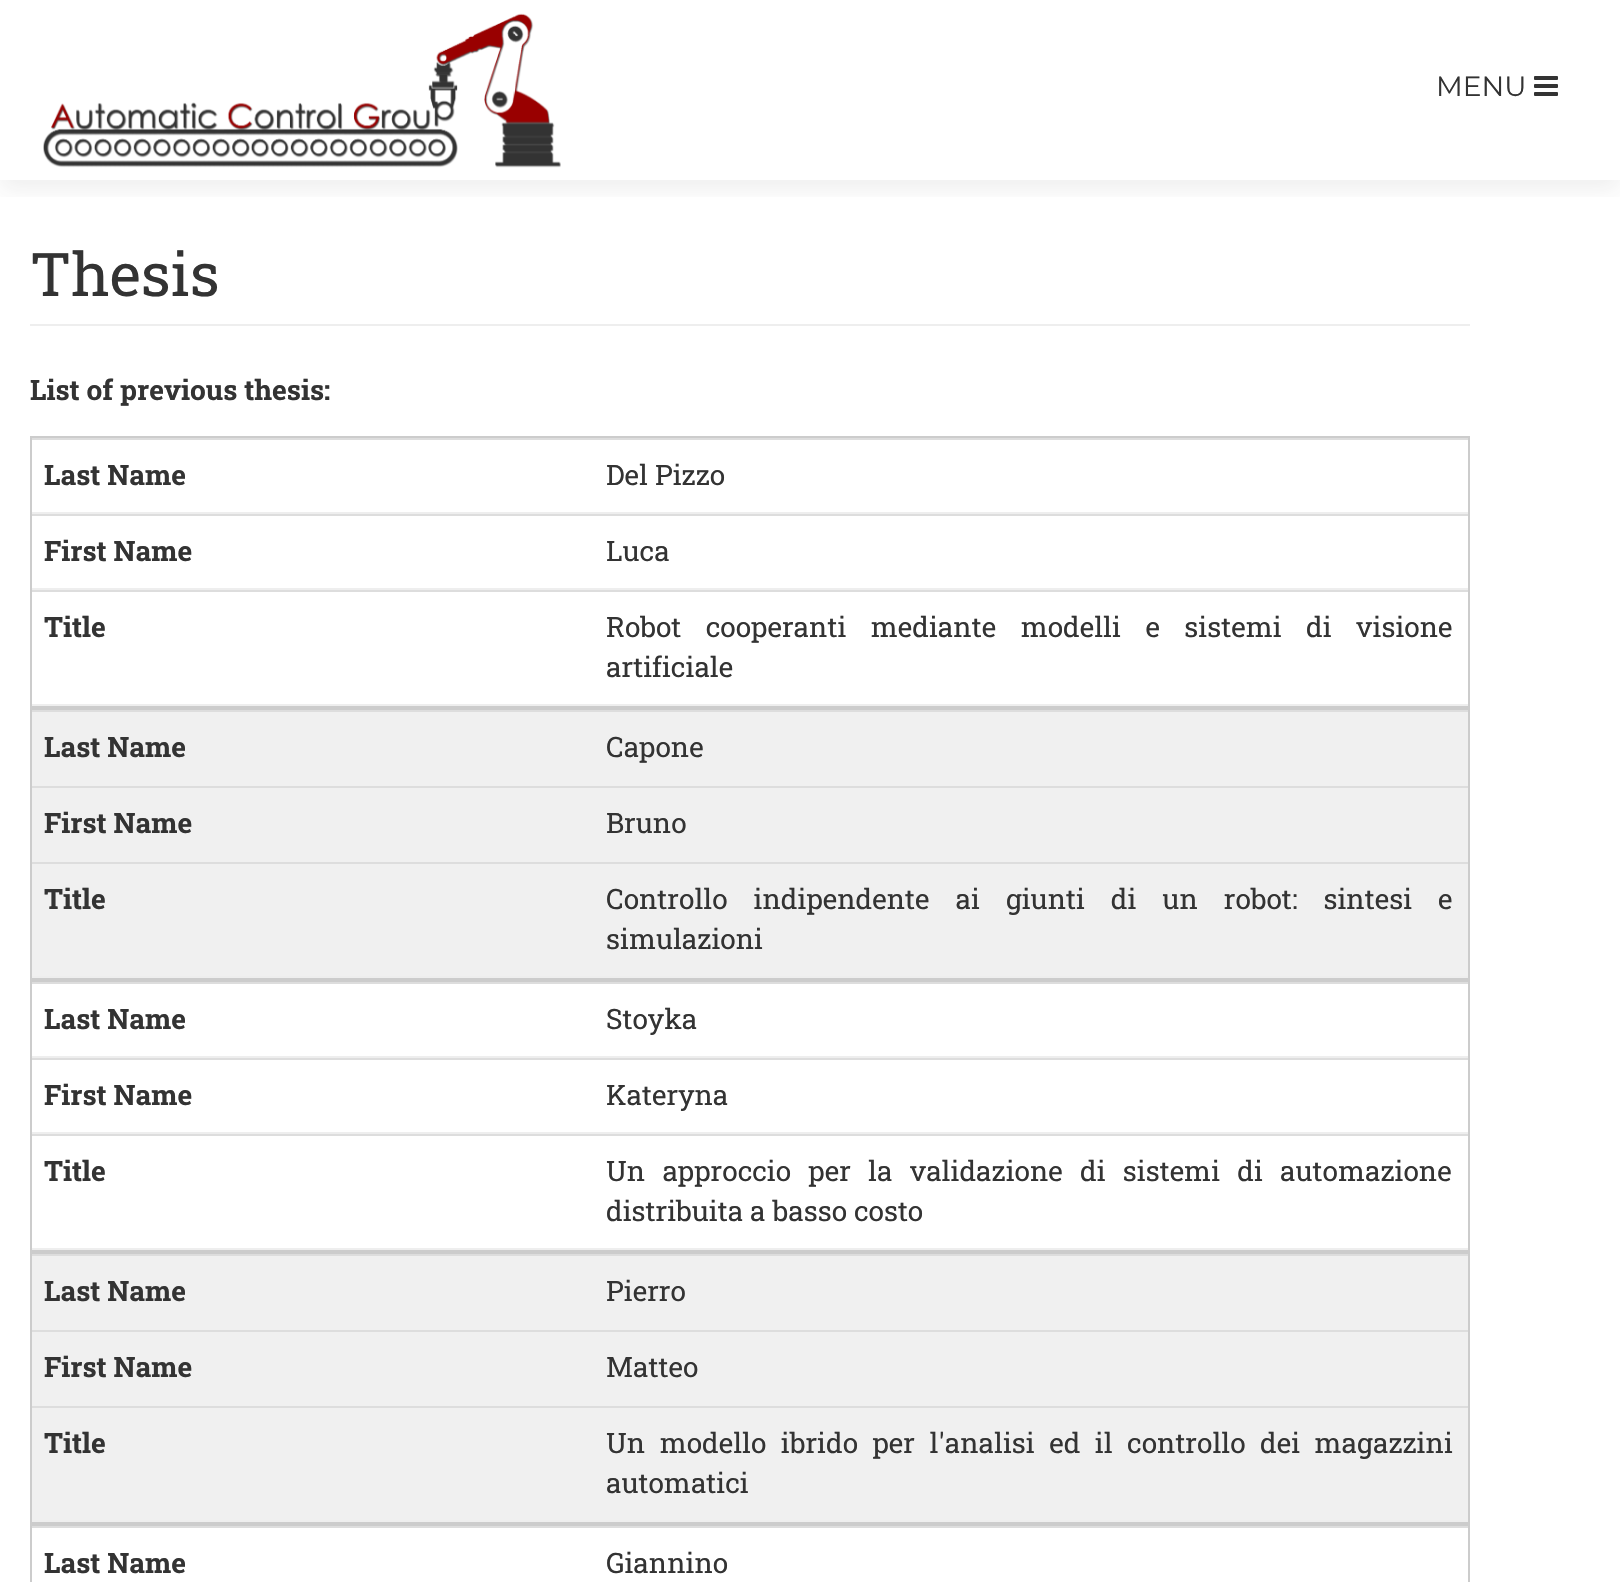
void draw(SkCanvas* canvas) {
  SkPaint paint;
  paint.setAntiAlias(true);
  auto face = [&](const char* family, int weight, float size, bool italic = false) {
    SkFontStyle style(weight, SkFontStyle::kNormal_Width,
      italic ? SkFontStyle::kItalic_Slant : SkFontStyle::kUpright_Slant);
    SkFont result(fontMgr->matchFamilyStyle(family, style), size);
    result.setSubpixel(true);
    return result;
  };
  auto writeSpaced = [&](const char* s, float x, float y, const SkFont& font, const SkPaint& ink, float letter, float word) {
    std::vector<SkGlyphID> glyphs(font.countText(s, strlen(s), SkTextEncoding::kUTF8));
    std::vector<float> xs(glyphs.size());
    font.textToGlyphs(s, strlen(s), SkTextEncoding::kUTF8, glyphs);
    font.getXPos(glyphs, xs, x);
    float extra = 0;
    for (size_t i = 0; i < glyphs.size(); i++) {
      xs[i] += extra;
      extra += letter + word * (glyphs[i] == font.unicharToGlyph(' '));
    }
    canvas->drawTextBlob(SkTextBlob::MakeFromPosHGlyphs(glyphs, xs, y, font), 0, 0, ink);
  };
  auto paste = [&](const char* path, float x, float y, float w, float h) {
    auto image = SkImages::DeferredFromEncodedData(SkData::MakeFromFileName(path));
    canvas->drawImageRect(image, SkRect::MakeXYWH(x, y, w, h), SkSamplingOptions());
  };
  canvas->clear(0xffffffff);
  canvas->save();
  canvas->clipRect(SkRect::MakeXYWH(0, 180, 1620, 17));
  paint.setColor(0x14323232);
  paint.setMaskFilter(SkMaskFilter::MakeBlur(kNormal_SkBlurStyle, 11));
  canvas->drawRect(SkRect::MakeXYWH(0, 10, 1620, 180), paint);
  paint.setMaskFilter(nullptr);
  canvas->restore();
  paste("img/1.png", 43, 13, 518, 155);
  paste("img/2.png", 1534, 76, 24, 20);
  paint.setColor(0xffeeeeee);
  canvas->drawRect(SkRect::MakeXYWH(30, 324, 1440, 2), paint);
  paint.setStroke(true);
  paint.setStrokeWidth(2);
  paint.setColor(0xffcccccc);
  canvas->drawRect(SkRect::MakeXYWH(31, 437, 1438, 270), paint);
  paint.setStroke(false);
  {
    const struct { float x, y, w, h; SkColor color; } items[] = {
      {32, 438, 1436, 2, 0xffdddddd},
      {32, 512, 1436, 2, 0xffeeeeee},
      {32, 514, 1436, 2, 0xffdddddd},
      {32, 588, 1436, 2, 0xffeeeeee},
      {32, 590, 1436, 2, 0xffdddddd},
      {32, 704, 1436, 2, 0xffeeeeee},
      {32, 712, 1436, 264, 0xfff0f0f0},
    };
    for (auto [x, y, w, h, color] : items) {
      paint.setColor(color);
      canvas->drawRect(SkRect::MakeXYWH(x, y, w, h), paint);
    }
  }
  paint.setStroke(true);
  paint.setColor(0xffcccccc);
  canvas->drawRect(SkRect::MakeXYWH(31, 709, 1438, 270), paint);
  paint.setStroke(false);
  {
    const struct { float x, y, w, h; SkColor color; } items[] = {
      {32, 710, 1436, 2, 0xffdddddd},
      {32, 786, 1436, 2, 0xffdddddd},
      {32, 862, 1436, 2, 0xffdddddd},
      {32, 976, 1436, 2, 0xffeeeeee},
    };
    for (auto [x, y, w, h, color] : items) {
      paint.setColor(color);
      canvas->drawRect(SkRect::MakeXYWH(x, y, w, h), paint);
    }
  }
  paint.setStroke(true);
  paint.setColor(0xffcccccc);
  canvas->drawRect(SkRect::MakeXYWH(31, 981, 1438, 270), paint);
  paint.setStroke(false);
  {
    const struct { float x, y, w, h; SkColor color; } items[] = {
      {32, 982, 1436, 2, 0xffdddddd},
      {32, 1056, 1436, 2, 0xffeeeeee},
      {32, 1058, 1436, 2, 0xffdddddd},
      {32, 1132, 1436, 2, 0xffeeeeee},
      {32, 1134, 1436, 2, 0xffdddddd},
      {32, 1248, 1436, 2, 0xffeeeeee},
      {32, 1256, 1436, 264, 0xfff0f0f0},
    };
    for (auto [x, y, w, h, color] : items) {
      paint.setColor(color);
      canvas->drawRect(SkRect::MakeXYWH(x, y, w, h), paint);
    }
  }
  paint.setStroke(true);
  paint.setColor(0xffcccccc);
  canvas->drawRect(SkRect::MakeXYWH(31, 1253, 1438, 270), paint);
  paint.setStroke(false);
  {
    const struct { float x, y, w, h; SkColor color; } items[] = {
      {32, 1254, 1436, 2, 0xffdddddd},
      {32, 1330, 1436, 2, 0xffdddddd},
      {32, 1406, 1436, 2, 0xffdddddd},
      {32, 1520, 1436, 2, 0xffeeeeee},
    };
    for (auto [x, y, w, h, color] : items) {
      paint.setColor(color);
      canvas->drawRect(SkRect::MakeXYWH(x, y, w, h), paint);
    }
  }
  paint.setStroke(true);
  paint.setColor(0xffcccccc);
  canvas->drawRect(SkRect::MakeXYWH(31, 1525, 1438, 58), paint);
  paint.setStroke(false);
  paint.setColor(0xffdddddd);
  canvas->drawRect(SkRect::MakeXYWH(32, 1526, 1436, 2), paint);
  auto f0 = face("Montserrat", 400, 28);
  paint.setColor(0xff333333);
  canvas->drawString("MENU", 1436, 96, f0, paint);
  auto f1 = face("Roboto Slab", 400, 60);
  canvas->drawString("Thesis", 30, 296, f1, paint);
  auto f2 = face("Roboto Slab", 700, 28);
  canvas->drawString("List of previous thesis:", 30, 400, f2, paint);
  canvas->drawString("Last Name", 44, 485, f2, paint);
  auto f3 = face("Roboto Slab", 400, 28);
  canvas->drawString("Del Pizzo", 606, 485, f3, paint);
  canvas->drawString("First Name", 44, 561, f2, paint);
  canvas->drawString("Luca", 606, 561, f3, paint);
  canvas->drawString("Title", 44, 637, f2, paint);
  writeSpaced("Robot cooperanti mediante modelli e sistemi di visione", 606, 637, f3, paint, 0, 17.5f);
  canvas->drawString("artificiale", 606, 677, f3, paint);
  canvas->drawString("Last Name", 44, 757, f2, paint);
  canvas->drawString("Capone", 606, 757, f3, paint);
  canvas->drawString("First Name", 44, 833, f2, paint);
  canvas->drawString("Bruno", 606, 833, f3, paint);
  canvas->drawString("Title", 44, 909, f2, paint);
  writeSpaced("Controllo indipendente ai giunti di un robot: sintesi e", 606, 909, f3, paint, 0, 19);
  canvas->drawString("simulazioni", 606, 949, f3, paint);
  canvas->drawString("Last Name", 44, 1029, f2, paint);
  canvas->drawString("Stoyka", 606, 1029, f3, paint);
  canvas->drawString("First Name", 44, 1105, f2, paint);
  canvas->drawString("Kateryna", 606, 1105, f3, paint);
  canvas->drawString("Title", 44, 1181, f2, paint);
  writeSpaced("Un approccio per la validazione di sistemi di automazione", 606, 1181, f3, paint, 0, 10.25f);
  canvas->drawString("distribuita a basso costo", 606, 1221, f3, paint);
  canvas->drawString("Last Name", 44, 1301, f2, paint);
  canvas->drawString("Pierro", 606, 1301, f3, paint);
  canvas->drawString("First Name", 44, 1377, f2, paint);
  canvas->drawString("Matteo", 606, 1377, f3, paint);
  canvas->drawString("Title", 44, 1453, f2, paint);
  writeSpaced("Un modello ibrido per l'analisi ed il controllo dei magazzini", 606, 1453, f3, paint, 0, 7.5f);
  canvas->drawString("automatici", 606, 1493, f3, paint);
  canvas->drawString("Last Name", 44, 1573, f2, paint);
  canvas->drawString("Giannino", 606, 1573, f3, paint);
}
